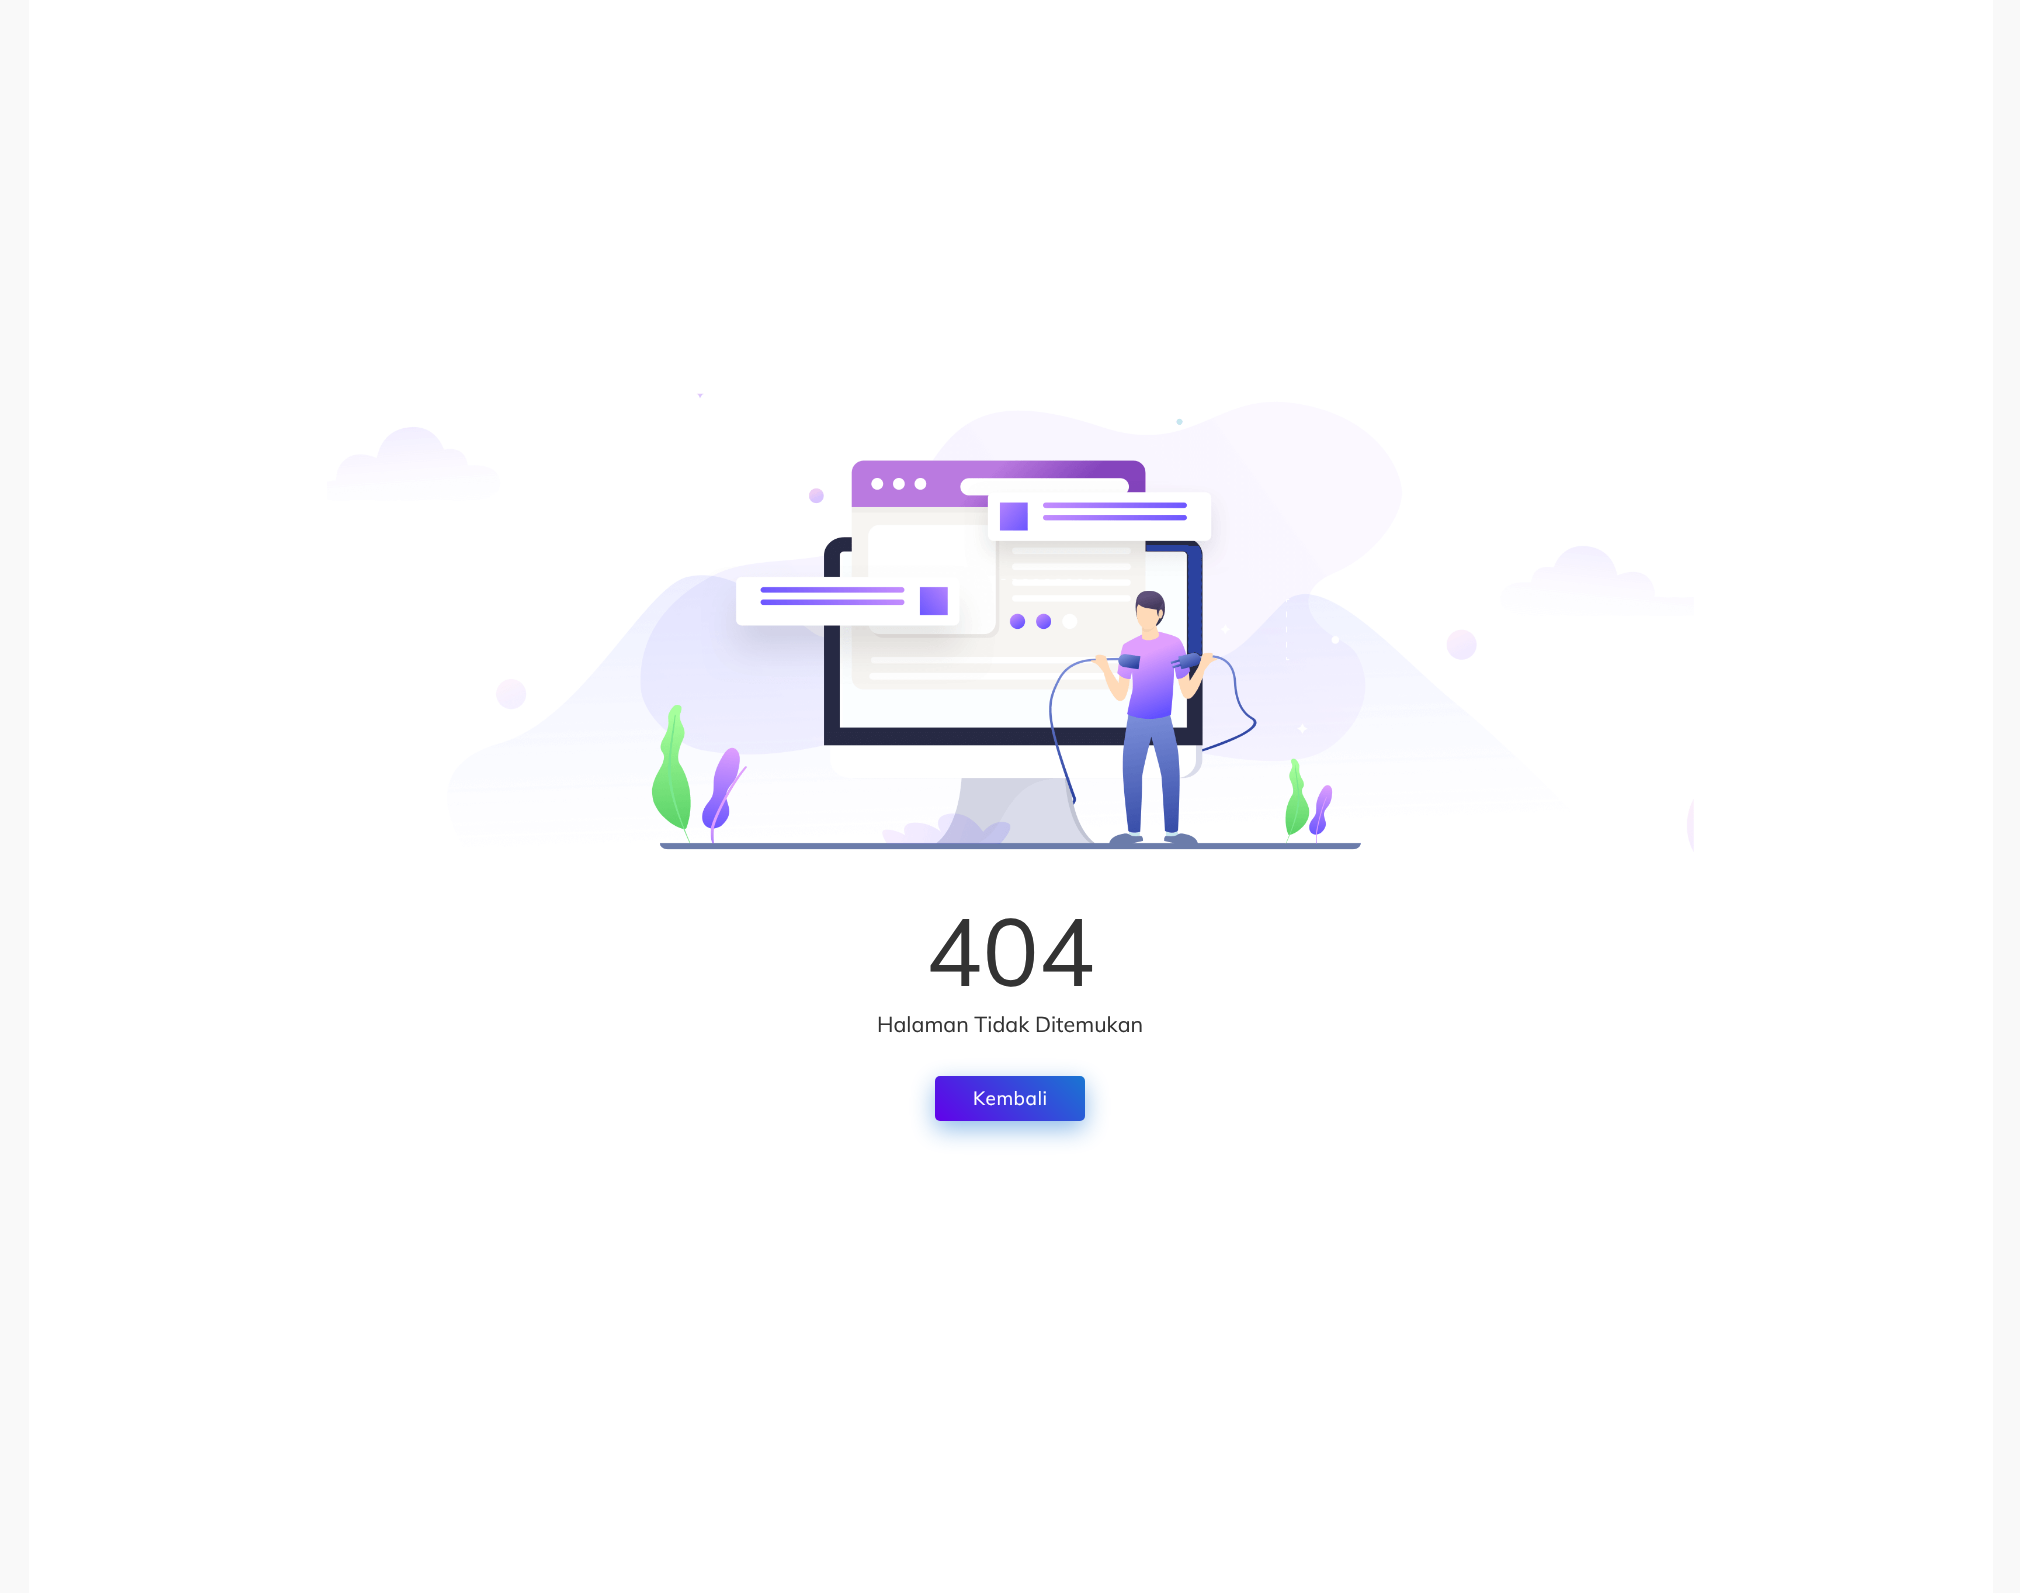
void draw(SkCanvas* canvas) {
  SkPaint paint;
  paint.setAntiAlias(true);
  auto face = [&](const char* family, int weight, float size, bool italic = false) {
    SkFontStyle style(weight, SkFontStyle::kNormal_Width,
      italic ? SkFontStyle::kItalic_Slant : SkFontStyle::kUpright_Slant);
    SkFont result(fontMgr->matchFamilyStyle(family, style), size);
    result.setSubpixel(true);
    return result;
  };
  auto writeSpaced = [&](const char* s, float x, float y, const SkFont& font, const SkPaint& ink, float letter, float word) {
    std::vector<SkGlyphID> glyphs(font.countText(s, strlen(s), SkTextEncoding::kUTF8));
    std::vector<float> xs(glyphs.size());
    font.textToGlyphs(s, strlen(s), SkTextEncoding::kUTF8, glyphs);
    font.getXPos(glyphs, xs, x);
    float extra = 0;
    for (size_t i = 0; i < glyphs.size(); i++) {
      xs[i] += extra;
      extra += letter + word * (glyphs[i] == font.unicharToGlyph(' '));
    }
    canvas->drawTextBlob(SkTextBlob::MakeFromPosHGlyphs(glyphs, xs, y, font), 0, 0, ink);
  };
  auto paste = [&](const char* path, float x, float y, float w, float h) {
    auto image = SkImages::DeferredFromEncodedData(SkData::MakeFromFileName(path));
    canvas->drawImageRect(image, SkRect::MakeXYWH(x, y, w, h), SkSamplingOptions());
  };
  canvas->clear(0xfff9f9f9);
  paint.setColor(0xffffffff);
  canvas->drawRect(SkRect::MakeXYWH(29, 0, 1964, 1593), paint);
  paste("img/1.png", 327, 393, 1367, 459);
  paint.setColor(0x801976d2);
  paint.setMaskFilter(SkMaskFilter::MakeBlur(kNormal_SkBlurStyle, 12.5f));
  canvas->drawRoundRect(SkRect::MakeXYWH(935, 1084, 150, 45), 5, 5, paint);
  paint.setMaskFilter(nullptr);
  {
    const SkColor colors[] = {0xff6200ea, 0xff1976d2};
    const float stops[] = {0, 1};
    const SkPoint ends[] = {{961, 1148}, {1059, 1050}};
    paint.setShader(SkGradientShader::MakeLinear(ends, colors, stops, 2, SkTileMode::kClamp));
    paint.setAlpha(255);
  }
  canvas->drawRoundRect(SkRect::MakeXYWH(935, 1076, 150, 45), 5, 5, paint);
  auto f0 = face("Muli", 400, 94);
  paint.setShader(nullptr);
  paint.setColor(0xff333333);
  canvas->drawString("404", 926, 986, f0, paint);
  auto f1 = face("Muli", 400, 21.5f);
  canvas->drawString("Halaman Tidak Ditemukan", 877, 1032, f1, paint);
  auto f2 = face("Muli", 400, 19);
  paint.setColor(0xffffffff);
  writeSpaced("Kembali", 973, 1105, f2, paint, 0.5f, 0);
}
